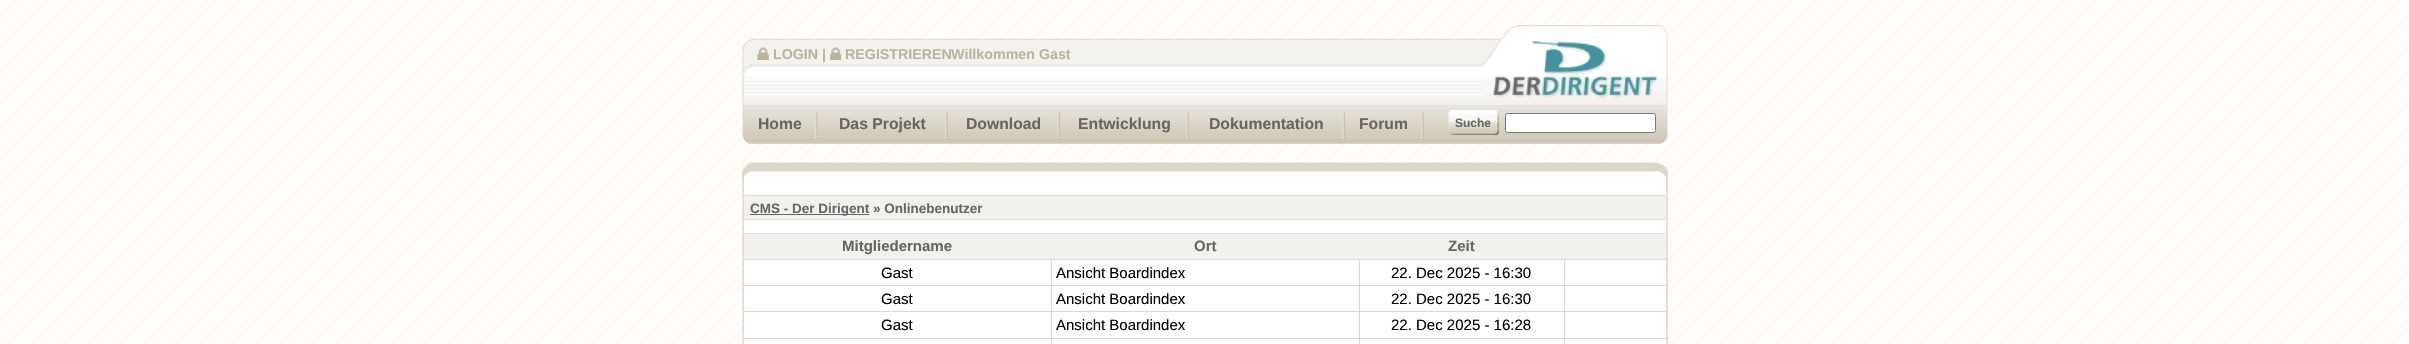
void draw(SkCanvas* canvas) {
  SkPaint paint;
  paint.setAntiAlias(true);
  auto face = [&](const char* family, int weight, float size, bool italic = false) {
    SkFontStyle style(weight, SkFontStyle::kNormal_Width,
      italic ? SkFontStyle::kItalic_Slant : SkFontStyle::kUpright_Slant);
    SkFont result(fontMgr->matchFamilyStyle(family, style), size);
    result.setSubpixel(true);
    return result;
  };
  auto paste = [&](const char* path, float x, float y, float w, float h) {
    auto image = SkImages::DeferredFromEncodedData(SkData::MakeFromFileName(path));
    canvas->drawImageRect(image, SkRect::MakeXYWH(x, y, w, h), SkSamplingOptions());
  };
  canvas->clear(0xffffffff);
  paste("img/1.png", 0, 0, 2409, 344);
  paste("img/2.png", 742, 25, 926, 119);
  paste("img/3.png", 757, 47, 12, 13);
  paste("img/4.png", 830, 47, 12, 13);
  paste("img/5.png", 1448, 110, 51, 25);
  paint.setColor(0xffffffff);
  canvas->drawRoundRect(SkRect::MakeXYWH(1505.5f, 113.5f, 150, 19), 2, 2, paint);
  paint.setStroke(true);
  paint.setStrokeWidth(1);
  paint.setColor(0xff767676);
  canvas->drawRoundRect(SkRect::MakeXYWH(1505.5f, 113.5f, 150, 19), 2, 2, paint);
  paste("img/6.png", 742, 162, 926, 182);
  paste("img/7.png", 742, 162, 926, 21);
  paint.setStroke(false);
  {
    const struct { float x, y, w, h; SkColor color; } items[] = {
      {744, 196, 922, 23, 0xfff3f1ed},
      {744, 195, 922, 1, 0xffe1ded7},
      {744, 219, 922, 1, 0xffe1ded7},
      {750, 214, 119, 1, 0xff666666},
      {744, 233, 924, 1, 0xffe1ded7},
      {1564, 338, 1, 6, 0xffdcd6cb},
      {1564, 338, 104, 1, 0xffdcd6cb},
      {1564, 311, 1, 28, 0xffdcd6cb},
      {1564, 311, 104, 1, 0xffdcd6cb},
      {1564, 285, 1, 28, 0xffdcd6cb},
      {1564, 285, 104, 1, 0xffdcd6cb},
      {1564, 259, 1, 27, 0xffdcd6cb},
      {1359, 338, 1, 6, 0xffdcd6cb},
      {1359, 338, 206, 1, 0xffdcd6cb},
      {1359, 311, 1, 28, 0xffdcd6cb},
      {1359, 311, 206, 1, 0xffdcd6cb},
      {1359, 285, 1, 28, 0xffdcd6cb},
      {1359, 285, 206, 1, 0xffdcd6cb},
      {1359, 259, 1, 27, 0xffdcd6cb},
      {1051, 338, 1, 6, 0xffdcd6cb},
      {1051, 338, 309, 1, 0xffdcd6cb},
      {1051, 311, 1, 28, 0xffdcd6cb},
      {1051, 311, 309, 1, 0xffdcd6cb},
      {1051, 285, 1, 28, 0xffdcd6cb},
      {1051, 285, 309, 1, 0xffdcd6cb},
      {1051, 259, 1, 27, 0xffdcd6cb},
      {744, 259, 924, 1, 0xffe1ded7},
      {744, 234, 922, 25, 0xfff3f1ed},
      {744, 285, 309, 1, 0xffdcd6cb},
      {744, 311, 309, 1, 0xffdcd6cb},
      {744, 338, 309, 1, 0xffdcd6cb},
    };
    for (auto [x, y, w, h, color] : items) {
      paint.setColor(color);
      canvas->drawRect(SkRect::MakeXYWH(x, y, w, h), paint);
    }
  }
  auto f0 = face("Liberation Sans", 700, 14.25f);
  paint.setColor(0xffbdb39d);
  {
    const struct { const char* s; float x, y; } items[] = {
      {"LOGIN |", 773, 59},
      {"REGISTRIEREN", 845, 59},
      {"Willkommen Gast", 951, 59},
    };
    for (auto [s, x, y] : items) {
      canvas->drawString(s, x, y, f0, paint);
    }
  }
  auto f1 = face("Liberation Sans", 700, 15.75f);
  paint.setColor(0xff666666);
  {
    const struct { const char* s; float x, y; } items[] = {
      {"Home", 758, 129},
      {"Das Projekt", 839, 129},
      {"Download", 966, 129},
      {"Entwicklung", 1078, 129},
      {"Dokumentation", 1209, 129},
      {"Forum", 1359, 129},
    };
    for (auto [s, x, y] : items) {
      canvas->drawString(s, x, y, f1, paint);
    }
  }
  auto f2 = face("Liberation Sans", 700, 12);
  canvas->drawString("Suche", 1455, 127, f2, paint);
  auto f3 = face("Liberation Sans", 700, 13.5f);
  canvas->drawString("CMS - Der Dirigent » Onlinebenutzer", 750, 213, f3, paint);
  auto f4 = face("Liberation Sans", 700, 15);
  {
    const struct { const char* s; float x, y; } items[] = {
      {"Mitgliedername", 842, 251},
      {"Ort", 1194, 251},
      {"Zeit", 1448, 251},
    };
    for (auto [s, x, y] : items) {
      canvas->drawString(s, x, y, f4, paint);
    }
  }
  auto f5 = face("Liberation Sans", 400, 15);
  paint.setColor(0xff000000);
  {
    const struct { const char* s; float x, y; } items[] = {
      {"Gast", 881, 278},
      {"Ansicht Boardindex", 1056, 278},
      {"22. Dec 2025 - 16:30", 1391, 278},
      {"Gast", 881, 304},
      {"Ansicht Boardindex", 1056, 304},
      {"22. Dec 2025 - 16:30", 1391, 304},
      {"Gast", 881, 330},
      {"Ansicht Boardindex", 1056, 330},
      {"22. Dec 2025 - 16:28", 1391, 330},
    };
    for (auto [s, x, y] : items) {
      canvas->drawString(s, x, y, f5, paint);
    }
  }
}
